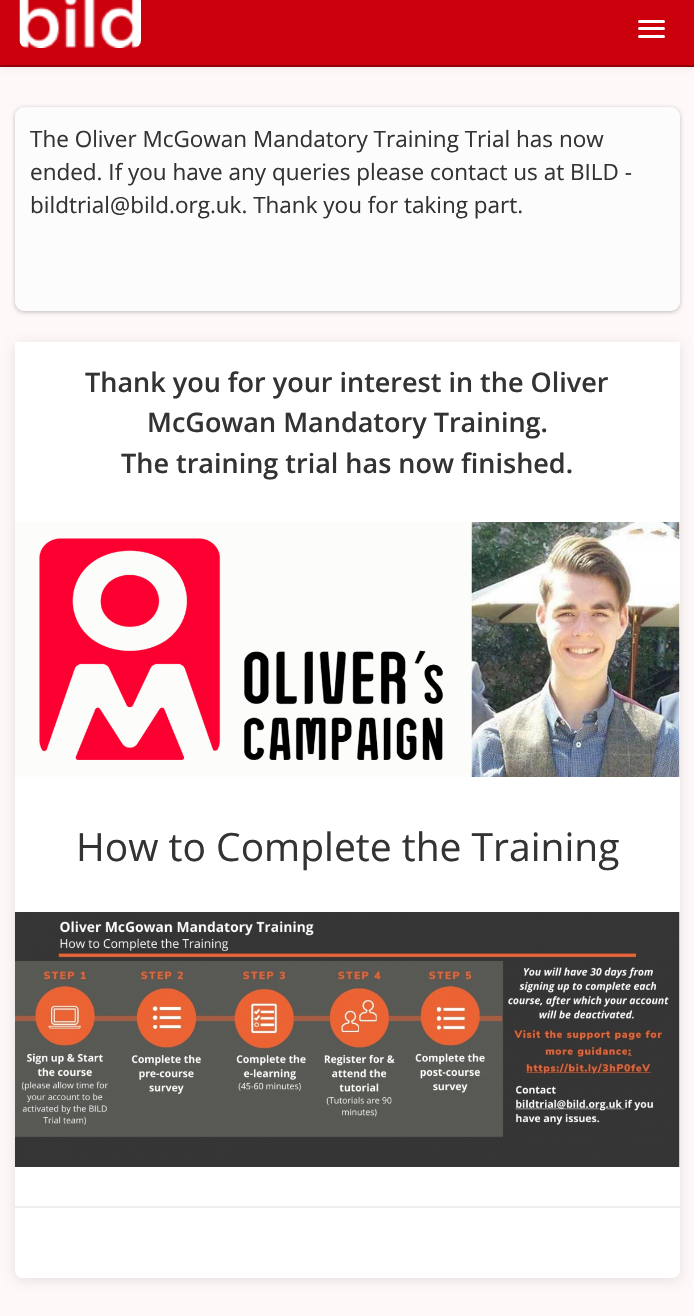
void draw(SkCanvas* canvas) {
  SkPaint paint;
  paint.setAntiAlias(true);
  auto face = [&](const char* family, int weight, float size, bool italic = false) {
    SkFontStyle style(weight, SkFontStyle::kNormal_Width,
      italic ? SkFontStyle::kItalic_Slant : SkFontStyle::kUpright_Slant);
    SkFont result(fontMgr->matchFamilyStyle(family, style), size);
    result.setSubpixel(true);
    return result;
  };
  auto paste = [&](const char* path, float x, float y, float w, float h) {
    auto image = SkImages::DeferredFromEncodedData(SkData::MakeFromFileName(path));
    canvas->drawImageRect(image, SkRect::MakeXYWH(x, y, w, h), SkSamplingOptions());
  };
  auto shape = [&](const char* data, bool evenOdd = false) {
    SkPath result = *SkParsePath::FromSVGString(data);
    if (evenOdd) result.setFillType(SkPathFillType::kEvenOdd);
    return result;
  };
  canvas->clear(0xfffff8f9);
  paint.setColor(0x12000000);
  paint.setMaskFilter(SkMaskFilter::MakeBlur(kNormal_SkBlurStyle, 3));
  canvas->drawRect(SkRect::MakeXYWH(0, -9, 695, 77), paint);
  paint.setMaskFilter(nullptr);
  paint.setColor(0xffcc000d);
  canvas->drawRect(SkRect::MakeXYWH(0, 0, 694, 65), paint);
  paint.setColor(0xff8f0009);
  canvas->drawRect(SkRect::MakeXYWH(0, 65, 694, 2), paint);
  paste("img/1.png", 19, 0, 122, 48);
  paint.setColor(0xffffffff);
  canvas->drawRoundRect(SkRect::MakeXYWH(638, 20, 27, 3), 1.5f, 1.5f, paint);
  canvas->drawRoundRect(SkRect::MakeXYWH(638, 27, 27, 3), 1.5f, 1.5f, paint);
  canvas->drawRoundRect(SkRect::MakeXYWH(638, 35, 27, 3), 1.5f, 1.5f, paint);
  paint.setColor(0x40000000);
  paint.setMaskFilter(SkMaskFilter::MakeBlur(kNormal_SkBlurStyle, 2));
  canvas->drawRoundRect(SkRect::MakeXYWH(15, 108, 665, 204), 9, 9, paint);
  paint.setMaskFilter(nullptr);
  paint.setColor(0xfffcfcfc);
  canvas->drawRoundRect(SkRect::MakeXYWH(15, 107, 665, 204), 9, 9, paint);
  paint.setColor(0x1a000000);
  paint.setMaskFilter(SkMaskFilter::MakeBlur(kNormal_SkBlurStyle, 6));
  canvas->drawRoundRect(SkRect::MakeXYWH(15, 344, 665, 936), 8, 8, paint);
  paint.setMaskFilter(nullptr);
  paint.setColor(0xffffffff);
  canvas->drawPath(shape("M15 342H680V1270C680 1274.5 676.5 1278 672 1278H23C18.5 1278 15 1274.5 15 1270Z"), paint);
  paste("img/2.png", 15, 522, 665, 255);
  paste("img/3.png", 15, 912, 665, 255);
  paint.setColor(0xffeeeeee);
  canvas->drawRect(SkRect::MakeXYWH(15, 1206, 665, 2), paint);
  auto f0 = face("Open Sans", 400, 22.5f);
  paint.setColor(0xff333333);
  {
    const struct { const char* s; float x, y; } items[] = {
      {"The Oliver McGowan Mandatory Training Trial has now", 30, 147},
      {"ended. If you have any queries please contact us at BILD -", 30, 180},
      {"bildtrial@bild.org.uk. Thank you for taking part.", 30, 213},
    };
    for (auto [s, x, y] : items) {
      canvas->drawString(s, x, y, f0, paint);
    }
  }
  auto f1 = face("Open Sans", 600, 27);
  {
    const struct { const char* s; float x, y; } items[] = {
      {"Thank you for your interest in the Oliver", 85, 392},
      {"McGowan Mandatory Training.", 147, 432},
      {"The training trial has now finished.", 121, 473},
    };
    for (auto [s, x, y] : items) {
      canvas->drawString(s, x, y, f1, paint);
    }
  }
  auto f2 = face("Open Sans", 400, 39);
  canvas->drawString("How to Complete the Training", 76, 861, f2, paint);
}
